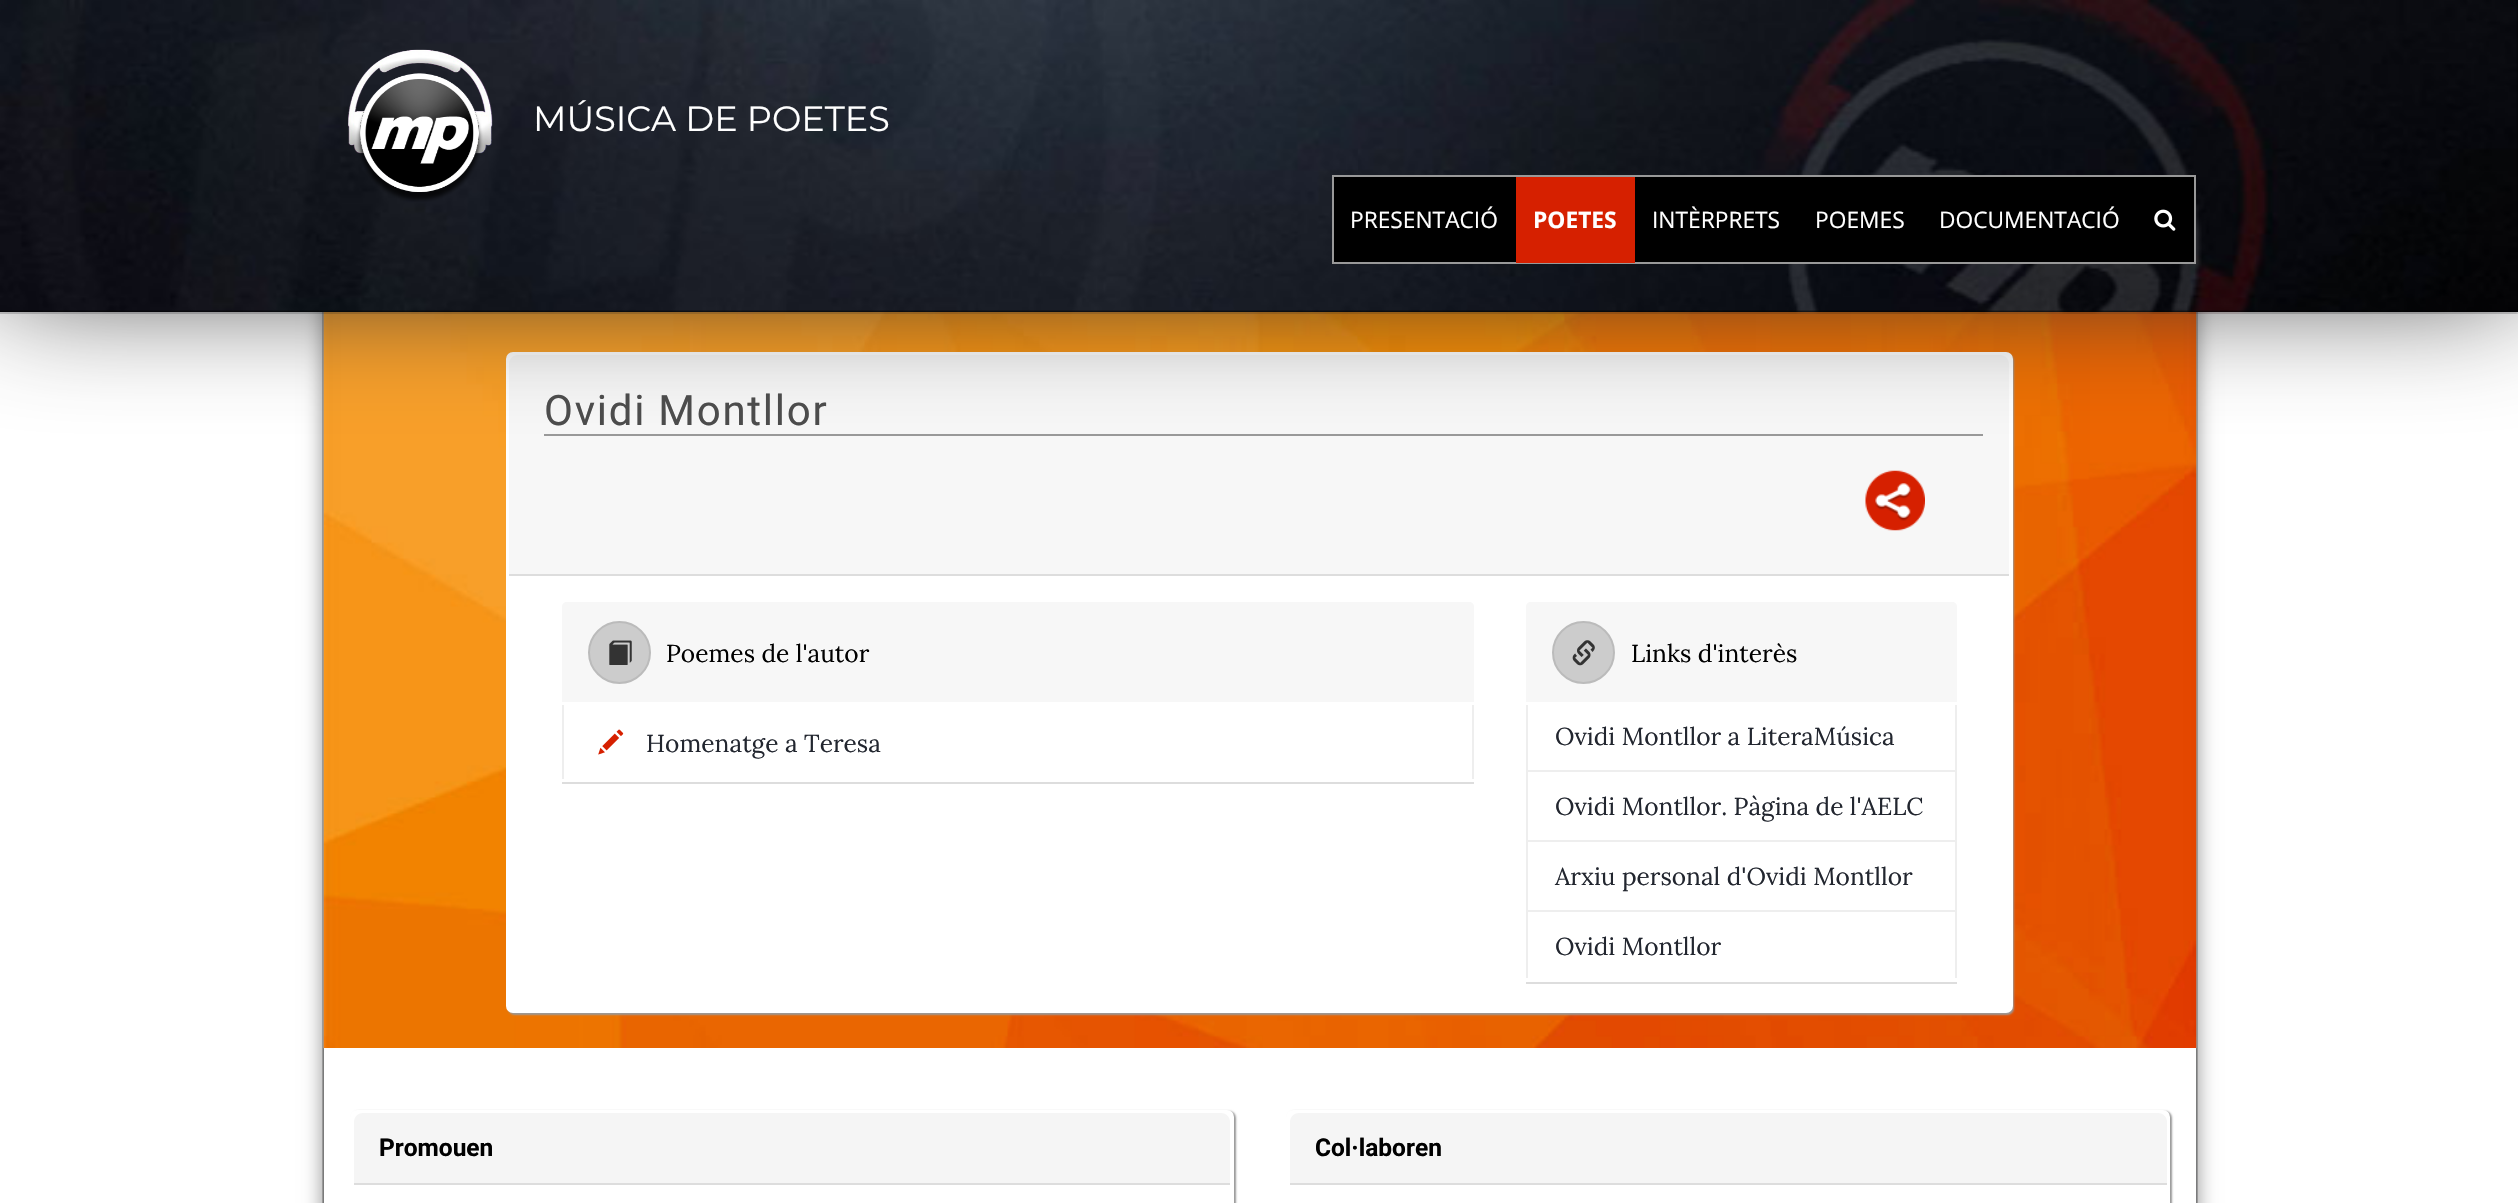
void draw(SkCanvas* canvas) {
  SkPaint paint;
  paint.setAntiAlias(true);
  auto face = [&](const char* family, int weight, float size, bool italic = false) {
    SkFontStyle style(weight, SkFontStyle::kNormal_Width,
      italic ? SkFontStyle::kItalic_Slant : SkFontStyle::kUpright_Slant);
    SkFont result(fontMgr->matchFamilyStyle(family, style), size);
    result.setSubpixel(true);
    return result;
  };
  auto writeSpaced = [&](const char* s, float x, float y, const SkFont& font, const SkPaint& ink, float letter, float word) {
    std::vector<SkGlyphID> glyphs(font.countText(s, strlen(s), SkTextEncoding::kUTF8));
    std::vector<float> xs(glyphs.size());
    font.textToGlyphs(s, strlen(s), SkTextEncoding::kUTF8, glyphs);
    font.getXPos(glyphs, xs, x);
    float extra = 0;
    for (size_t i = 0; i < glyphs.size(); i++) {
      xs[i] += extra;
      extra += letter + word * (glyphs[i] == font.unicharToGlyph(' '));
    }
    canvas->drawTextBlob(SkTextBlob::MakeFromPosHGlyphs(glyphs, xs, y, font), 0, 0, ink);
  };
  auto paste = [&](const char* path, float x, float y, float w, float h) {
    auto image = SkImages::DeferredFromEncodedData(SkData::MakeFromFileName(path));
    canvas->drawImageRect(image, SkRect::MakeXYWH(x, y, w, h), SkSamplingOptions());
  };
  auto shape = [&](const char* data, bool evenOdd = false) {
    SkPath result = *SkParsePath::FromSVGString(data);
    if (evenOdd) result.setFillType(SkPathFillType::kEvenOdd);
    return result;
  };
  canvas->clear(0xffffffff);
  paint.setColor(0xff999999);
  paint.setMaskFilter(SkMaskFilter::MakeBlur(kNormal_SkBlurStyle, 9));
  canvas->drawRect(SkRect::MakeXYWH(322, 0, 1876, 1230), paint);
  paint.setMaskFilter(nullptr);
  canvas->drawRect(SkRect::MakeXYWH(2196, 312, 2, 891), paint);
  canvas->drawRect(SkRect::MakeXYWH(322, 312, 2, 891), paint);
  paste("img/4.png", 323, 312, 1874, 737);
  paint.setMaskFilter(SkMaskFilter::MakeBlur(kNormal_SkBlurStyle, 1));
  canvas->drawRoundRect(SkRect::MakeXYWH(508, 354, 1506, 661), 7, 7, paint);
  paint.setMaskFilter(nullptr);
  paint.setColor(0xffffffff);
  canvas->drawRoundRect(SkRect::MakeXYWH(508, 354, 1503, 657), 5, 5, paint);
  paint.setStroke(true);
  paint.setStrokeWidth(4);
  canvas->drawRoundRect(SkRect::MakeXYWH(508, 354, 1503, 657), 5, 5, paint);
  paint.setStroke(false);
  paint.setColor(0xfff7f7f7);
  canvas->drawPath(shape("M518 355H2000C2005 355 2009 359 2009 364V576H509V364C509 359 513 355 518 355Z"), paint);
  paint.setColor(0xff999999);
  canvas->drawRect(SkRect::MakeXYWH(544, 434, 1439, 2), paint);
  paste("img/5.png", 1865, 470, 60, 61);
  paint.setColor(0xff333333);
  paint.setMaskFilter(SkMaskFilter::MakeBlur(kNormal_SkBlurStyle, 60.5f));
  canvas->drawRect(SkRect::MakeXYWH(0, -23, 2518, 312), paint);
  paint.setMaskFilter(nullptr);
  paint.setColor(0xff000000);
  canvas->drawRect(SkRect::MakeXYWH(0, 0, 2518, 312), paint);
  paste("img/1.png", 0, 0, 2518, 314);
  paste("img/2.png", 348, 49, 145, 153);
  canvas->drawRect(SkRect::MakeXYWH(1333, 176, 862, 87), paint);
  paint.setStroke(true);
  paint.setStrokeWidth(2);
  paint.setColor(0xff999999);
  canvas->drawRect(SkRect::MakeXYWH(1333, 176, 862, 87), paint);
  paint.setStroke(false);
  paint.setColor(0xffd62000);
  canvas->drawRect(SkRect::MakeXYWH(1516, 177, 119, 86), paint);
  paste("img/3.png", 2154, 209, 22, 22);
  paint.setColor(0xffdddddd);
  canvas->drawRect(SkRect::MakeXYWH(509, 574, 1500, 2), paint);
  paint.setColor(0xfff7f7f7);
  canvas->drawPath(shape("M567 602H1469C1472 602 1474 604 1474 607V702H562V607C562 604 564 602 567 602Z"), paint);
  paint.setColor(0xffcccccc);
  canvas->drawCircle(619.5f, 652.5f, 30.5f, paint);
  paint.setStroke(true);
  paint.setColor(0xffbbbbbb);
  canvas->drawCircle(619.5f, 652.5f, 30.5f, paint);
  paste("img/6.png", 609, 640, 23, 25);
  paint.setStroke(false);
  {
    const struct { float x, y, w, h; SkColor color; } items[] = {
      {562, 782, 912, 2, 0xffdddddd},
      {1472, 705, 2, 74, 0xffeeeeee},
      {562, 705, 2, 74, 0xffeeeeee},
    };
    for (auto [x, y, w, h, color] : items) {
      paint.setColor(color);
      canvas->drawRect(SkRect::MakeXYWH(x, y, w, h), paint);
    }
  }
  paste("img/7.png", 598, 729, 26, 26);
  paint.setColor(0xfff7f7f7);
  canvas->drawPath(shape("M1531 602H1952C1955 602 1957 604 1957 607V702H1526V607C1526 604 1528 602 1531 602Z"), paint);
  paint.setColor(0xffcccccc);
  canvas->drawCircle(1583.5f, 652.5f, 30.5f, paint);
  paint.setStroke(true);
  paint.setColor(0xffbbbbbb);
  canvas->drawCircle(1583.5f, 652.5f, 30.5f, paint);
  paste("img/8.png", 1572, 640, 23, 26);
  paint.setStroke(false);
  {
    const struct { float x, y, w, h; SkColor color; } items[] = {
      {1526, 982, 431, 2, 0xffdddddd},
      {1955, 705, 2, 67, 0xffeeeeee},
      {1526, 705, 2, 67, 0xffeeeeee},
      {1526, 770, 431, 2, 0xffeeeeee},
      {1955, 770, 2, 72, 0xffeeeeee},
      {1526, 770, 2, 72, 0xffeeeeee},
      {1526, 840, 431, 2, 0xffeeeeee},
      {1955, 840, 2, 72, 0xffeeeeee},
      {1526, 840, 2, 72, 0xffeeeeee},
      {1526, 910, 431, 2, 0xffeeeeee},
      {1955, 910, 2, 68, 0xffeeeeee},
      {1526, 910, 2, 68, 0xffeeeeee},
    };
    for (auto [x, y, w, h, color] : items) {
      paint.setColor(color);
      canvas->drawRect(SkRect::MakeXYWH(x, y, w, h), paint);
    }
  }
  paste("img/9.png", 323, 1048, 1874, 155);
  paint.setColor(0xffffffff);
  canvas->drawRect(SkRect::MakeXYWH(324, 1048, 1872, 155), paint);
  paint.setColor(0xff999999);
  paint.setMaskFilter(SkMaskFilter::MakeBlur(kNormal_SkBlurStyle, 1));
  canvas->drawRoundRect(SkRect::MakeXYWH(352, 1111, 884, 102), 7, 7, paint);
  paint.setMaskFilter(nullptr);
  paint.setColor(0xffffffff);
  canvas->drawRoundRect(SkRect::MakeXYWH(352, 1112, 880, 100), 5, 5, paint);
  paint.setStroke(true);
  paint.setStrokeWidth(4);
  canvas->drawRoundRect(SkRect::MakeXYWH(352, 1112, 880, 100), 5, 5, paint);
  paint.setStroke(false);
  paint.setColor(0xfff5f5f5);
  canvas->drawPath(shape("M363 1113H1221C1226 1113 1230 1117 1230 1122V1185H354V1122C354 1117 358 1113 363 1113Z"), paint);
  paint.setColor(0xffdddddd);
  canvas->drawRect(SkRect::MakeXYWH(354, 1183, 876, 2), paint);
  paint.setColor(0xff999999);
  paint.setMaskFilter(SkMaskFilter::MakeBlur(kNormal_SkBlurStyle, 1));
  canvas->drawRoundRect(SkRect::MakeXYWH(1288, 1111, 884, 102), 7, 7, paint);
  paint.setMaskFilter(nullptr);
  paint.setColor(0xffffffff);
  canvas->drawRoundRect(SkRect::MakeXYWH(1288, 1112, 880, 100), 5, 5, paint);
  paint.setStroke(true);
  canvas->drawRoundRect(SkRect::MakeXYWH(1288, 1112, 880, 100), 5, 5, paint);
  paint.setStroke(false);
  paint.setColor(0xfff5f5f5);
  canvas->drawPath(shape("M1299 1113H2158C2163 1113 2167 1117 2167 1122V1185H1290V1122C1290 1117 1294 1113 1299 1113Z"), paint);
  paint.setColor(0xffdddddd);
  canvas->drawRect(SkRect::MakeXYWH(1290, 1183, 877, 2), paint);
  auto f0 = face("Montserrat", 400, 35);
  paint.setColor(0xffffffff);
  canvas->drawString("MÚSICA DE POETES", 533, 131, f0, paint);
  auto f1 = face("Open Sans", 400, 22.75f);
  canvas->drawString("PRESENTACIÓ", 1350, 228, f1, paint);
  auto f2 = face("Open Sans", 700, 22.75f);
  canvas->drawString("POETES", 1533, 228, f2, paint);
  {
    const struct { const char* s; float x, y; } items[] = {
      {"INTÈRPRETS", 1652, 228},
      {"POEMES", 1815, 228},
      {"DOCUMENTACIÓ", 1939, 228},
    };
    for (auto [s, x, y] : items) {
      canvas->drawString(s, x, y, f1, paint);
    }
  }
  auto f3 = face("Roboto", 400, 42);
  paint.setColor(0xff4c4c4c);
  writeSpaced("Ovidi Montllor", 544, 425, f3, paint, 1.75f, 0);
  auto f4 = face("Lora", 400, 24.5f);
  paint.setColor(0xff000000);
  canvas->drawString("Poemes de l'autor", 666, 662, f4, paint);
  paint.setColor(0xff22262f);
  canvas->drawString("Homenatge a Teresa", 646, 752, f4, paint);
  paint.setColor(0xff000000);
  canvas->drawString("Links d'interès", 1631, 662, f4, paint);
  paint.setColor(0xff22262f);
  {
    const struct { const char* s; float x, y; } items[] = {
      {"Ovidi Montllor a LiteraMúsica", 1555, 745},
      {"Ovidi Montllor. Pàgina de l'AELC", 1555, 815},
      {"Arxiu personal d'Ovidi Montllor", 1555, 885},
      {"Ovidi Montllor", 1555, 955},
    };
    for (auto [s, x, y] : items) {
      canvas->drawString(s, x, y, f4, paint);
    }
  }
  auto f5 = face("Roboto", 700, 24.5f);
  paint.setColor(0xff000000);
  canvas->drawString("Promouen", 379, 1156, f5, paint);
  canvas->drawString("Col·laboren", 1315, 1156, f5, paint);
}
